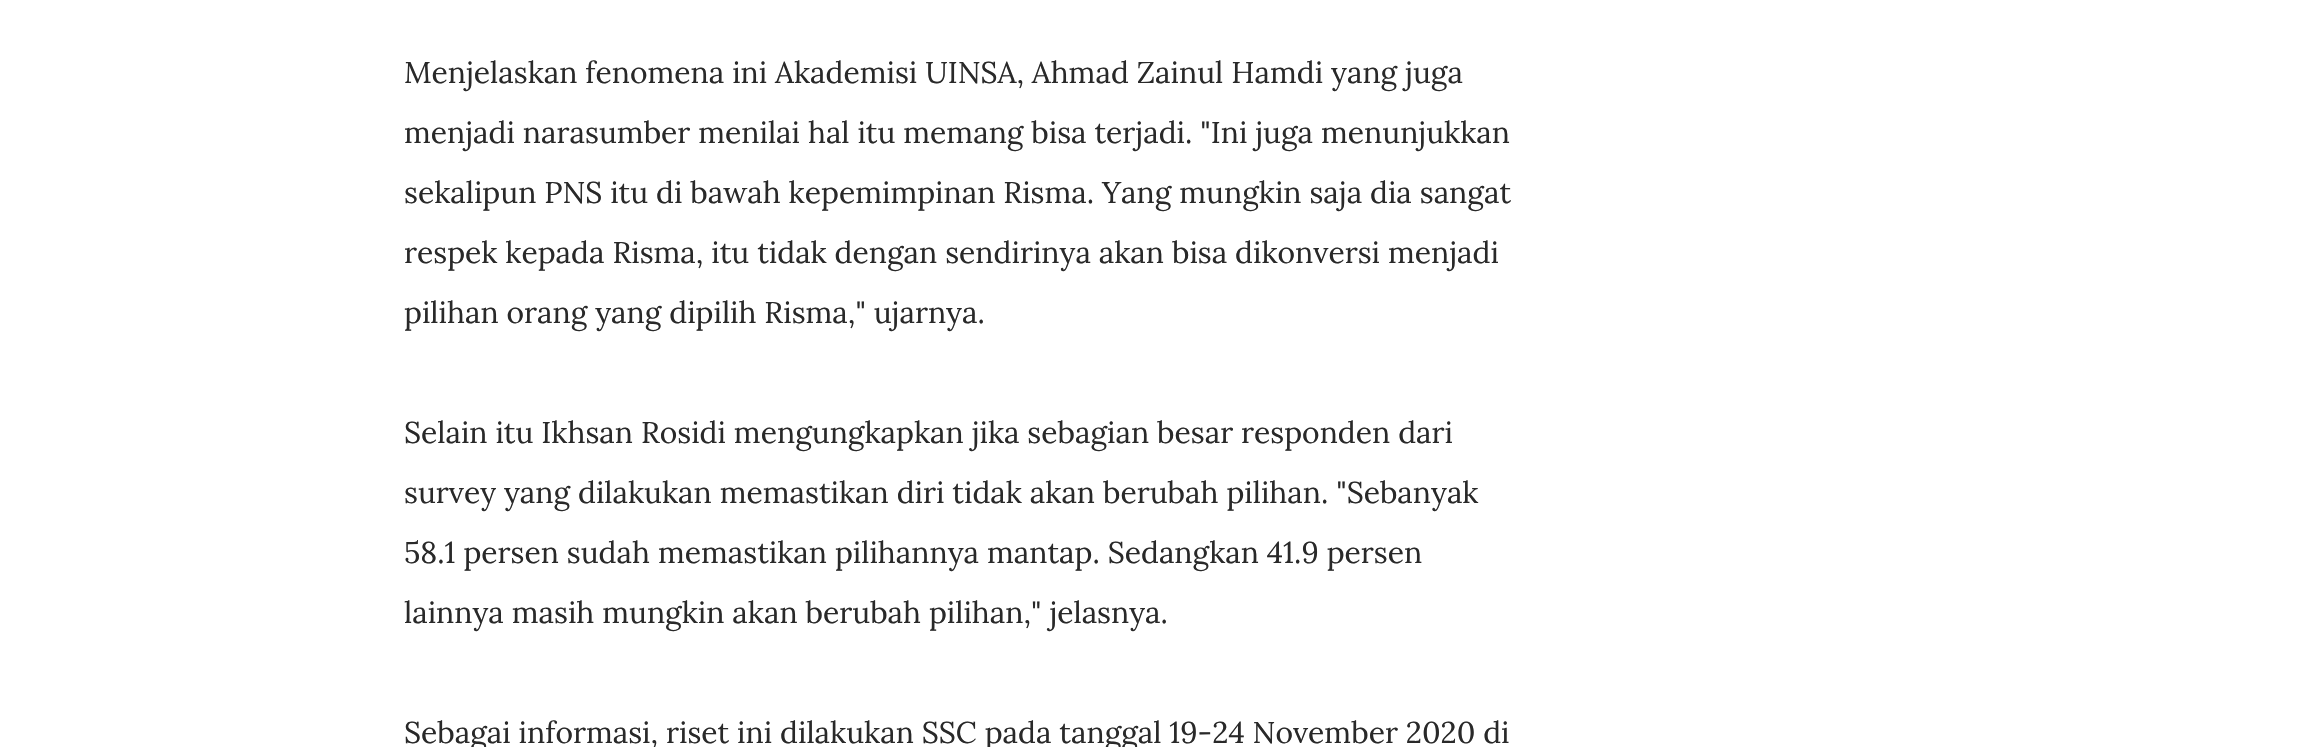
void draw(SkCanvas* canvas) {
  SkPaint paint;
  paint.setAntiAlias(true);
  auto face = [&](const char* family, int weight, float size, bool italic = false) {
    SkFontStyle style(weight, SkFontStyle::kNormal_Width,
      italic ? SkFontStyle::kItalic_Slant : SkFontStyle::kUpright_Slant);
    SkFont result(fontMgr->matchFamilyStyle(family, style), size);
    result.setSubpixel(true);
    return result;
  };
  canvas->clear(0xffffffff);
  auto f0 = face("Lora", 400, 30);
  paint.setColor(0xff292929);
  {
    const struct { const char* s; float x, y; } items[] = {
      {"Menjelaskan fenomena ini Akademisi UINSA, Ahmad Zainul Hamdi yang juga", 404, 83},
      {"menjadi narasumber menilai hal itu memang bisa terjadi. \"Ini juga menunjukkan", 404, 143},
      {"sekalipun PNS itu di bawah kepemimpinan Risma. Yang mungkin saja dia sangat", 404, 203},
      {"respek kepada Risma, itu tidak dengan sendirinya akan bisa dikonversi menjadi", 404, 263},
      {"pilihan orang yang dipilih Risma,\" ujarnya.", 404, 323},
      {"Selain itu Ikhsan Rosidi mengungkapkan jika sebagian besar responden dari", 404, 443},
      {"survey yang dilakukan memastikan diri tidak akan berubah pilihan. \"Sebanyak", 404, 503},
      {"58.1 persen sudah memastikan pilihannya mantap. Sedangkan 41.9 persen", 404, 563},
      {"lainnya masih mungkin akan berubah pilihan,\" jelasnya.", 404, 623},
      {"Sebagai informasi, riset ini dilakukan SSC pada tanggal 19-24 November 2020 di", 404, 743},
    };
    for (auto [s, x, y] : items) {
      canvas->drawString(s, x, y, f0, paint);
    }
  }
}
